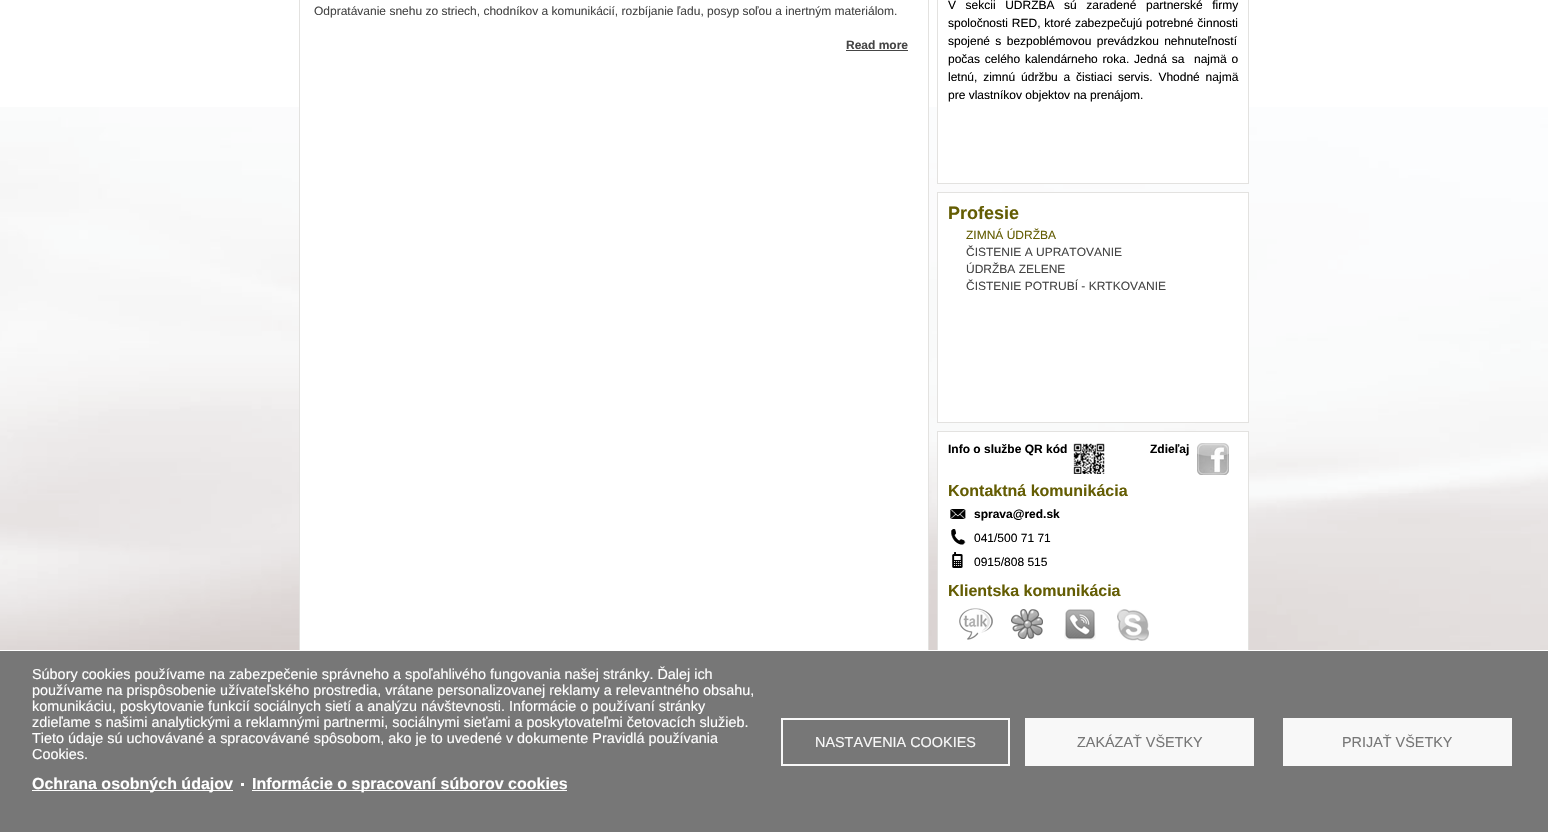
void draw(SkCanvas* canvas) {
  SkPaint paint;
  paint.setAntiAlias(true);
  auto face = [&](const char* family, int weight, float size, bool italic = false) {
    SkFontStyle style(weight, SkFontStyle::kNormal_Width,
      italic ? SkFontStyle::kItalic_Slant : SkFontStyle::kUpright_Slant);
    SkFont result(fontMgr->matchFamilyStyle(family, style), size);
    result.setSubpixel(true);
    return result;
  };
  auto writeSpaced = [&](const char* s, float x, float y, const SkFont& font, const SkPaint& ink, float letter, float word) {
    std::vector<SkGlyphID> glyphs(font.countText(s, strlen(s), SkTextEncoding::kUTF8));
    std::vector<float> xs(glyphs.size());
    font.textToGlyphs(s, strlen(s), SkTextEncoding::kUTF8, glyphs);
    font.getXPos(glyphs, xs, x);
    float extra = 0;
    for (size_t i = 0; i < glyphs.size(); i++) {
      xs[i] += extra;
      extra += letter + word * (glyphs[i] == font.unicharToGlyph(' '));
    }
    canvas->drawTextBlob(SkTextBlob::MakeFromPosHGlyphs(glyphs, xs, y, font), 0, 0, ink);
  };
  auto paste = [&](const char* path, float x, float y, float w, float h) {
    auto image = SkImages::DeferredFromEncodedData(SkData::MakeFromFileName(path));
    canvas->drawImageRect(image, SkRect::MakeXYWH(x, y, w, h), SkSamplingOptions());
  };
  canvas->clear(0xffffffff);
  paste("img/1.png", 0, 107, 1548, 543);
  paint.setColor(0xffffffff);
  canvas->drawRect(SkRect::MakeXYWH(938, 107, 310, 76), paint);
  paint.setStroke(true);
  paint.setStrokeWidth(1);
  paint.setColor(0xffe3e2e0);
  canvas->drawRect(SkRect::MakeXYWH(937.5f, -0.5f, 311, 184), paint);
  paint.setStroke(false);
  paint.setColor(0xffffffff);
  canvas->drawRect(SkRect::MakeXYWH(937.5f, 192.5f, 311, 230), paint);
  paint.setStroke(true);
  paint.setColor(0xffe3e2e0);
  canvas->drawRect(SkRect::MakeXYWH(937.5f, 192.5f, 311, 230), paint);
  paint.setStroke(false);
  paint.setColor(0xffffffff);
  canvas->drawRect(SkRect::MakeXYWH(938, 432, 310, 218), paint);
  paint.setStroke(true);
  paint.setColor(0xffe3e2e0);
  canvas->drawRect(SkRect::MakeXYWH(937.5f, 431.5f, 311, 239), paint);
  paste("img/2.png", 1073, 443, 32, 31);
  paste("img/3.png", 1197, 443, 32, 32);
  paste("img/4.png", 950, 509, 16, 10);
  paste("img/5.png", 951, 529, 15, 16);
  paste("img/6.png", 952, 552, 11, 16);
  paste("img/7.png", 959, 608, 34, 32);
  paste("img/8.png", 1011, 609, 32, 30);
  paste("img/9.png", 1064, 609, 32, 31);
  paste("img/10.png", 1117, 609, 32, 32);
  paint.setStroke(false);
  paint.setColor(0xffffffff);
  canvas->drawRect(SkRect::MakeXYWH(300, 107, 628, 543), paint);
  paint.setStroke(true);
  paint.setColor(0xffe3e2e0);
  canvas->drawRect(SkRect::MakeXYWH(299.5f, -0.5f, 629, 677), paint);
  paint.setStroke(false);
  {
    const struct { float x, y, w, h; SkColor color; } items[] = {
      {846, 50, 62, 1, 0xff454545},
      {0, 651, 1548, 181, 0xff777777},
      {299, 650, 950, 1, 0xffffffff},
      {32, 790, 201, 1, 0xffffffff},
      {241, 783, 3, 3, 0xffffffff},
      {252, 790, 315, 1, 0xffffffff},
    };
    for (auto [x, y, w, h, color] : items) {
      paint.setColor(color);
      canvas->drawRect(SkRect::MakeXYWH(x, y, w, h), paint);
    }
  }
  paint.setStroke(true);
  paint.setStrokeWidth(2);
  paint.setColor(0xfff8f8f8);
  canvas->drawRect(SkRect::MakeXYWH(782, 719, 227, 46), paint);
  paint.setStroke(false);
  canvas->drawRect(SkRect::MakeXYWH(1025, 718, 229, 48), paint);
  canvas->drawRect(SkRect::MakeXYWH(1283, 718, 229, 48), paint);
  auto f0 = face("Liberation Sans", 400, 12);
  paint.setColor(0xff000000);
  writeSpaced("V sekcii ÚDRŽBA sú zaradené partnerské firmy", 948, 9, f0, paint, 0, 6.25f);
  writeSpaced("spoločnosti RED, ktoré zabezpečujú potrebné činnosti", 948, 27, f0, paint, 0, 0.5f);
  writeSpaced("spojené s bezpoblémovou prevádzkou nehnuteľností", 948, 45, f0, paint, 0, 2);
  writeSpaced("počas celého kalendárneho roka. Jedná sa  najmä o", 948, 63, f0, paint, 0, 1.5f);
  writeSpaced("letnú, zimnú údržbu a čistiaci servis. Vhodné najmä", 948, 81, f0, paint, 0, 2.5f);
  canvas->drawString("pre vlastníkov objektov na prenájom.", 948, 99, f0, paint);
  auto f1 = face("Liberation Sans", 700, 18);
  paint.setColor(0xff645d03);
  canvas->drawString("Profesie", 948, 219, f1, paint);
  canvas->drawString("ZIMNÁ ÚDRŽBA", 966, 239, f0, paint);
  paint.setColor(0xff454545);
  {
    const struct { const char* s; float x, y; } items[] = {
      {"ČISTENIE A UPRATOVANIE", 966, 256},
      {"ÚDRŽBA ZELENE", 966, 273},
      {"ČISTENIE POTRUBÍ - KRTKOVANIE", 966, 290},
    };
    for (auto [s, x, y] : items) {
      canvas->drawString(s, x, y, f0, paint);
    }
  }
  auto f2 = face("Liberation Sans", 700, 12);
  paint.setColor(0xff000000);
  canvas->drawString("Info o službe QR kód", 948, 453, f2, paint);
  canvas->drawString("Zdieľaj", 1150, 453, f2, paint);
  auto f3 = face("Liberation Sans", 700, 16);
  paint.setColor(0xff645d03);
  canvas->drawString("Kontaktná komunikácia", 948, 496, f3, paint);
  paint.setColor(0xff000000);
  canvas->drawString("sprava@red.sk", 974, 518, f2, paint);
  canvas->drawString("041/500 71 71", 974, 542, f0, paint);
  canvas->drawString("0915/808 515", 974, 566, f0, paint);
  paint.setColor(0xff645d03);
  canvas->drawString("Klientska komunikácia", 948, 596, f3, paint);
  paint.setColor(0xff454545);
  canvas->drawString("Odpratávanie snehu zo striech, chodníkov a komunikácií, rozbíjanie ľadu, posyp soľou a inertným materiálom.", 314, 15, f0, paint);
  canvas->drawString("Read more", 846, 49, f2, paint);
  auto f4 = face("Liberation Sans", 400, 14.4f);
  paint.setColor(0xffffffff);
  {
    const struct { const char* s; float x, y; } items[] = {
      {"Súbory cookies používame na zabezpečenie správneho a spoľahlivého fungovania našej stránky. Ďalej ich", 32, 679},
      {"používame na prispôsobenie užívateľského prostredia, vrátane personalizovanej reklamy a relevantného obsahu,", 32, 695},
      {"komunikáciu, poskytovanie funkcií sociálnych sietí a analýzu návštevnosti. Informácie o používaní stránky", 32, 711},
      {"zdieľame s našimi analytickými a reklamnými partnermi, sociálnymi sieťami a poskytovateľmi četovacích služieb.", 32, 727},
      {"Tieto údaje sú uchovávané a spracovávané spôsobom, ako je to uvedené v dokumente Pravidlá používania", 32, 743},
      {"Cookies.", 32, 759},
    };
    for (auto [s, x, y] : items) {
      canvas->drawString(s, x, y, f4, paint);
    }
  }
  canvas->drawString("Ochrana osobných údajov", 32, 789, f3, paint);
  canvas->drawString("Informácie o spracovaní súborov cookies", 252, 789, f3, paint);
  paint.setColor(0xfff8f8f8);
  canvas->drawString("NASTAVENIA COOKIES", 815, 747, f4, paint);
  paint.setColor(0xff777777);
  canvas->drawString("ZAKÁZAŤ VŠETKY", 1077, 747, f4, paint);
  canvas->drawString("PRIJAŤ VŠETKY", 1342, 747, f4, paint);
}
